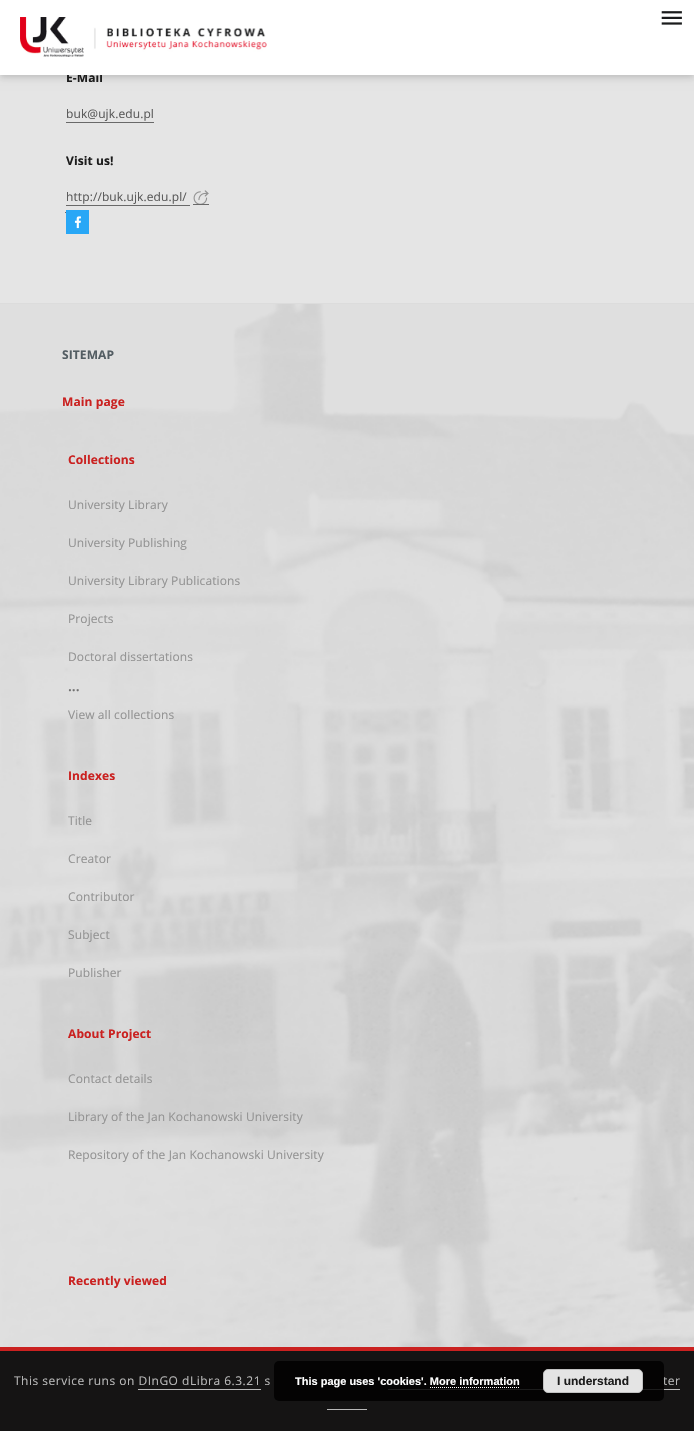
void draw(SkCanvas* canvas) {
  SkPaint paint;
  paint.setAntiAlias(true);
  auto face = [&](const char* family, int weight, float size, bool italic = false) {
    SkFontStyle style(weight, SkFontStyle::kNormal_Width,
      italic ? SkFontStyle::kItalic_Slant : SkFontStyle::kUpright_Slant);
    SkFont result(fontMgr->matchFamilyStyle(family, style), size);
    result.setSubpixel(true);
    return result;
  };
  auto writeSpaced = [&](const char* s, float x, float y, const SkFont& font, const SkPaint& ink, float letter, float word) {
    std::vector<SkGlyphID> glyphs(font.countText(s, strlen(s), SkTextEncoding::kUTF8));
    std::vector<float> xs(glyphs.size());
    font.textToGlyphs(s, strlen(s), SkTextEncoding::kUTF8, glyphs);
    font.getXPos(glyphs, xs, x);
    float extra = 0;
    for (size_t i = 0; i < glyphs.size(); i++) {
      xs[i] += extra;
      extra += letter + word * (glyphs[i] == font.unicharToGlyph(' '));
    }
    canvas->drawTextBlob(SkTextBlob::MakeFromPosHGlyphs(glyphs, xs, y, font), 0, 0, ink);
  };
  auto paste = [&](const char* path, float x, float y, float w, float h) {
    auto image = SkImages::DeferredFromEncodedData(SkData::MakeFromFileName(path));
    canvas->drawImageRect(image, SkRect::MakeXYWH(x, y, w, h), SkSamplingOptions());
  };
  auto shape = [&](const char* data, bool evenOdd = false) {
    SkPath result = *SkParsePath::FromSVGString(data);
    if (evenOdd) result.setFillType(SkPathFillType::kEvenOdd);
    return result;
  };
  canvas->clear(0xffdcdcdc);
  paint.setColor(0xffe5e5e5);
  canvas->drawRect(SkRect::MakeXYWH(0, 75, 694, 228), paint);
  paint.setColor(0x14000000);
  paint.setMaskFilter(SkMaskFilter::MakeBlur(kNormal_SkBlurStyle, 5));
  canvas->drawRect(SkRect::MakeXYWH(0, 1, 694, 75), paint);
  paint.setMaskFilter(nullptr);
  paint.setColor(0x0f000000);
  paint.setMaskFilter(SkMaskFilter::MakeBlur(kNormal_SkBlurStyle, 2.5f));
  canvas->drawRect(SkRect::MakeXYWH(0, 4, 694, 75), paint);
  paint.setMaskFilter(nullptr);
  paint.setMaskFilter(SkMaskFilter::MakeBlur(kNormal_SkBlurStyle, 2));
  canvas->drawRect(SkRect::MakeXYWH(1, 3, 692, 73), paint);
  paint.setMaskFilter(nullptr);
  {
    const struct { float x, y, w, h; SkColor color; } items[] = {
      {66, 122, 88, 1, 0xff696969},
      {66, 205, 124, 1, 0xff696969},
      {193, 204, 16, 1, 0xff696969},
    };
    for (auto [x, y, w, h, color] : items) {
      paint.setColor(color);
      canvas->drawRect(SkRect::MakeXYWH(x, y, w, h), paint);
    }
  }
  paste("img/3.png", 193, 190, 16, 14);
  canvas->drawRect(SkRect::MakeXYWH(65, 212, 1, 1), paint);
  paint.setColor(0xff28a7f6);
  canvas->drawRect(SkRect::MakeXYWH(66, 210, 23, 24), paint);
  paste("img/4.png", 74, 216, 7, 13);
  paste("img/5.png", 0, 304, 694, 1043);
  {
    const struct { float x, y, w, h; SkColor color; } items[] = {
      {0, 1351, 694, 80, 0xff151414},
      {0, 1347, 694, 4, 0xffca2120},
      {388, 1389, 292, 1, 0xffb8b8b8},
      {327, 1409, 40, 1, 0xffb8b8b8},
      {138, 1389, 123, 1, 0xffb8b8b8},
    };
    for (auto [x, y, w, h, color] : items) {
      paint.setColor(color);
      canvas->drawRect(SkRect::MakeXYWH(x, y, w, h), paint);
    }
  }
  auto f0 = face("Open Sans", 700, 12);
  paint.setColor(0xff1c1c1c);
  writeSpaced("E-Mail", 66, 82, f0, paint, 0.1f, 0);
  paint.setColor(0xffffffff);
  canvas->drawRect(SkRect::MakeXYWH(0, 0, 694, 75), paint);
  paste("img/1.png", 20, 17, 247, 40);
  paste("img/2.png", 661, 11, 21, 14);
  auto f1 = face("Open Sans", 400, 12);
  paint.setColor(0xff5a5a5a);
  writeSpaced("buk@ujk.edu.pl", 66, 118, f1, paint, 0.1f, 0);
  paint.setColor(0xff1c1c1c);
  writeSpaced("Visit us!", 66, 165, f0, paint, 0.1f, 0);
  paint.setColor(0xff5a5a5a);
  writeSpaced("http://buk.ujk.edu.pl/", 66, 201, f1, paint, 0.1f, 0);
  paint.setColor(0xff535d63);
  writeSpaced("SITEMAP", 62, 359, f0, paint, 0.1f, 0);
  paint.setColor(0xffca2120);
  writeSpaced("Main page", 62, 406, f0, paint, 0.1f, 0);
  writeSpaced("Collections", 68, 464, f0, paint, 0.1f, 0);
  paint.setColor(0xff939393);
  {
    const struct { const char* s; float x, y; } items[] = {
      {"University Library", 68, 509},
      {"University Publishing", 68, 547},
      {"University Library Publications", 68, 585},
      {"Projects", 68, 623},
      {"Doctoral dissertations", 68, 661},
    };
    for (auto [s, x, y] : items) {
      writeSpaced(s, x, y, f1, paint, 0.1f, 0);
    }
  }
  auto f2 = face("Open Sans", 600, 14);
  paint.setColor(0xff707070);
  canvas->drawString("...", 68, 691, f2, paint);
  paint.setColor(0xff939393);
  writeSpaced("View all collections", 68, 719, f1, paint, 0.1f, 0);
  paint.setColor(0xffca2120);
  writeSpaced("Indexes", 68, 780, f0, paint, 0.1f, 0);
  paint.setColor(0xff939393);
  {
    const struct { const char* s; float x, y; } items[] = {
      {"Title", 68, 825},
      {"Creator", 68, 863},
      {"Contributor", 68, 901},
      {"Subject", 68, 939},
      {"Publisher", 68, 977},
    };
    for (auto [s, x, y] : items) {
      writeSpaced(s, x, y, f1, paint, 0.1f, 0);
    }
  }
  paint.setColor(0xffca2120);
  writeSpaced("About Project", 68, 1038, f0, paint, 0.1f, 0);
  paint.setColor(0xff939393);
  {
    const struct { const char* s; float x, y; } items[] = {
      {"Contact details", 68, 1083},
      {"Library of the Jan Kochanowski University", 68, 1121},
      {"Repository of the Jan Kochanowski University", 68, 1159},
    };
    for (auto [s, x, y] : items) {
      writeSpaced(s, x, y, f1, paint, 0.1f, 0);
    }
  }
  paint.setColor(0xffca2120);
  writeSpaced("Recently viewed", 68, 1285, f0, paint, 0.1f, 0);
  paint.setColor(0xffb8b8b8);
  writeSpaced("This service runs on DInGO dLibra 6.3.21 s", 14, 1385, f1, paint, 0.5f, 0);
  writeSpaced("ter", 663, 1385, f1, paint, 0.5f, 0);
  paint.setColor(0xd9000000);
  canvas->drawRoundRect(SkRect::MakeXYWH(274, 1361, 390, 40), 5, 5, paint);
  auto f3 = face("Liberation Sans", 700, 11);
  paint.setColor(0xffffffff);
  canvas->drawString("This page uses 'cookies'. More information", 295, 1385, f3, paint);
  paint.setColor(0xffe4e4e4);
  canvas->drawRoundRect(SkRect::MakeXYWH(543.5f, 1369.5f, 99, 23), 4.5f, 4.5f, paint);
  paint.setStroke(true);
  paint.setStrokeWidth(1);
  paint.setColor(0xffc1c1c1);
  canvas->drawRoundRect(SkRect::MakeXYWH(543.5f, 1369.5f, 99, 23), 4.5f, 4.5f, paint);
  auto f4 = face("Liberation Sans", 700, 12);
  paint.setStroke(false);
  paint.setColor(0xff1c1c1c);
  canvas->drawString("I understand", 557, 1385, f4, paint);
  paint.setStroke(true);
  paint.setColor(0xffffffff);
  paint.setPathEffect(SkDashPathEffect::Make({{1, 1}}, 0));
  canvas->drawPath(shape("M430 1387.5H520"), paint);
  paint.setPathEffect(nullptr);
}
